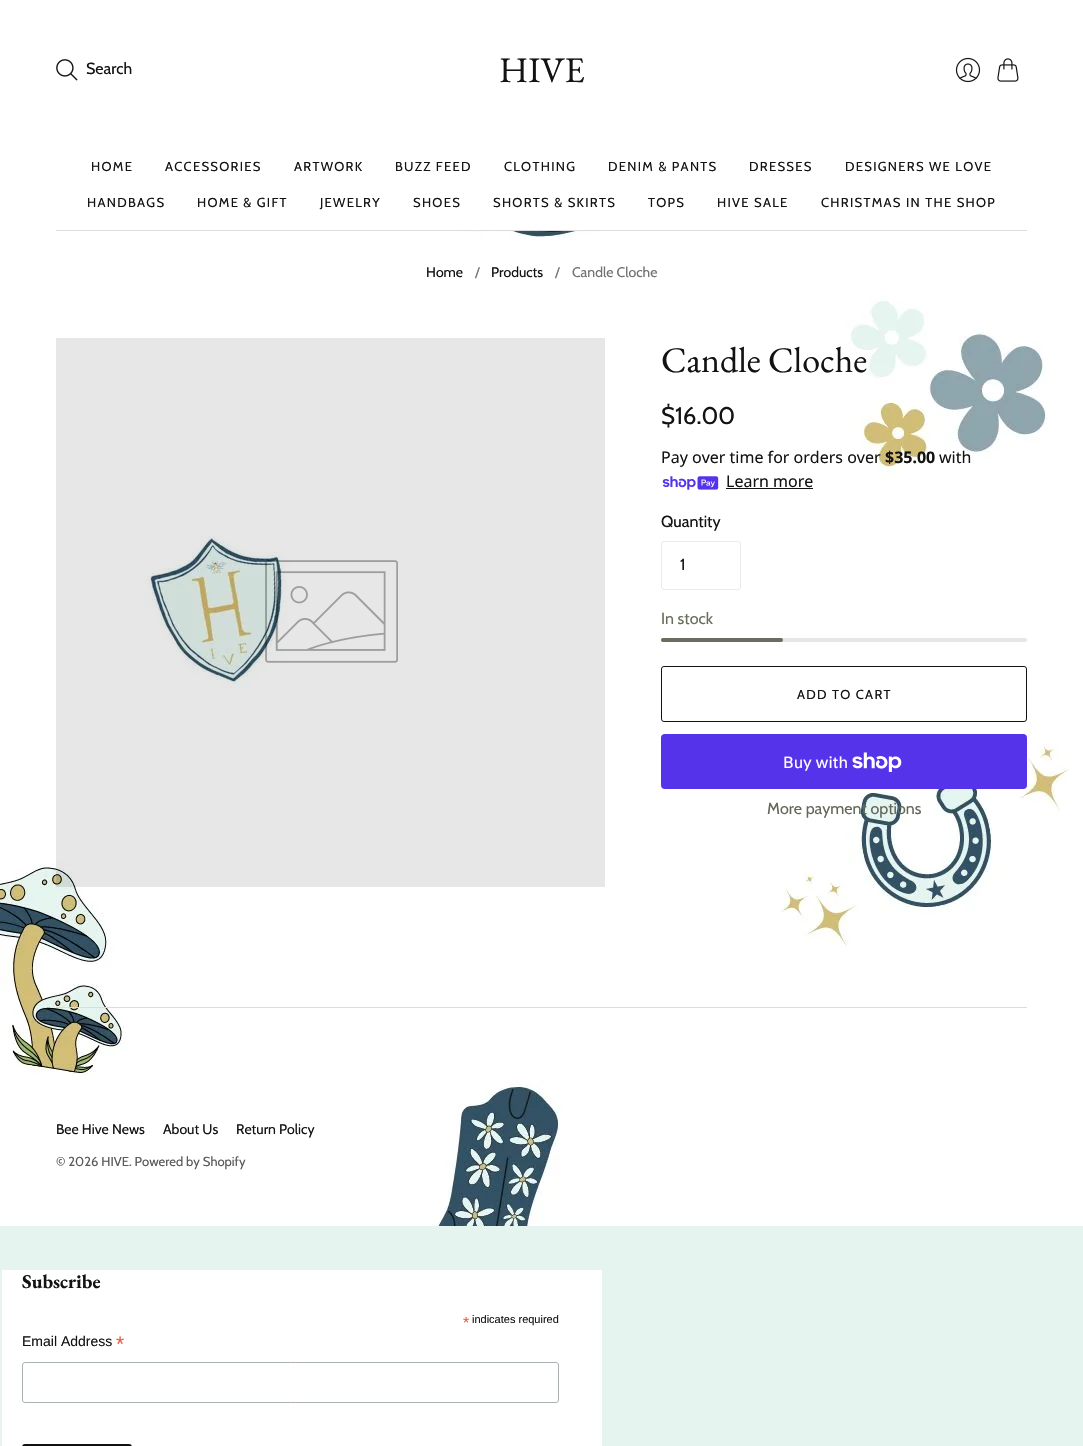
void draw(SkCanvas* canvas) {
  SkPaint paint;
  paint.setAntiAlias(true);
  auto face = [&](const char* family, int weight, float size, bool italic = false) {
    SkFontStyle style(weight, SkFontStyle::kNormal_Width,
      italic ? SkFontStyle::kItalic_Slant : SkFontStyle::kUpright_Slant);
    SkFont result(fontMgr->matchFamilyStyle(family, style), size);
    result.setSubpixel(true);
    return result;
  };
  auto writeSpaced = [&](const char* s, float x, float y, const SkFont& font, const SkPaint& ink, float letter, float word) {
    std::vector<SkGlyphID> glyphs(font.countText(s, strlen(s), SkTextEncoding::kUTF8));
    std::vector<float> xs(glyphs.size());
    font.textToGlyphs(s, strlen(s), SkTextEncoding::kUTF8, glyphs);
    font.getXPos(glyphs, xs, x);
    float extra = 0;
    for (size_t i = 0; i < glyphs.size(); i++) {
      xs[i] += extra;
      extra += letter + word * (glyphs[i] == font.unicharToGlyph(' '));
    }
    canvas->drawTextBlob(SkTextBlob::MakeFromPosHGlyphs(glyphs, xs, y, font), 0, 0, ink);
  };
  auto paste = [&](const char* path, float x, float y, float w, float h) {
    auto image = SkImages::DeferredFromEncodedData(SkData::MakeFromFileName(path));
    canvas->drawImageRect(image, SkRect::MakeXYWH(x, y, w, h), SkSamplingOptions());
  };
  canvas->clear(0xffffffff);
  paste("img/1.png", 0, 231, 1068, 995);
  paint.setColor(0xffdcdcdc);
  canvas->drawRect(SkRect::MakeXYWH(56, 230, 971, 1), paint);
  paste("img/2.png", 56, 59, 22, 22);
  paste("img/3.png", 955, 57, 26, 26);
  paste("img/4.png", 997, 58, 22, 24);
  paint.setColor(0x1a131313);
  canvas->drawRect(SkRect::MakeXYWH(56, 338, 549, 549), paint);
  paste("img/5.png", 265, 560, 133, 103);
  paste("img/6.png", 662, 476, 57, 14);
  paint.setColor(0xff131313);
  canvas->drawRect(SkRect::MakeXYWH(726, 488, 87, 1), paint);
  paint.setStroke(true);
  paint.setStrokeWidth(1);
  paint.setColor(0xffeaeaea);
  canvas->drawRoundRect(SkRect::MakeXYWH(661.5f, 541.5f, 79, 48), 2.5f, 2.5f, paint);
  paint.setStroke(false);
  paint.setColor(0xffe6e6e6);
  canvas->drawRoundRect(SkRect::MakeXYWH(661, 638, 366, 4), 2, 2, paint);
  paint.setColor(0xff676e5d);
  canvas->drawRoundRect(SkRect::MakeXYWH(661, 638, 122, 4), 2, 2, paint);
  paint.setStroke(true);
  paint.setColor(0xff131313);
  canvas->drawRoundRect(SkRect::MakeXYWH(661.5f, 666.5f, 365, 55), 2.5f, 2.5f, paint);
  paint.setStroke(false);
  paint.setColor(0xff5433eb);
  canvas->drawRoundRect(SkRect::MakeXYWH(661, 734, 366, 55), 4, 4, paint);
  paste("img/7.png", 852, 752, 50, 20);
  {
    const struct { float x, y, w, h; SkColor color; } items[] = {
      {56, 1007, 971, 1, 0xffdcdcdc},
      {0, 1226, 1083, 220, 0xffe5f4ef},
      {2, 1270, 600, 176, 0xffffffff},
    };
    for (auto [x, y, w, h, color] : items) {
      paint.setColor(color);
      canvas->drawRect(SkRect::MakeXYWH(x, y, w, h), paint);
    }
  }
  paint.setStroke(true);
  paint.setColor(0xffabb0b2);
  canvas->drawRoundRect(SkRect::MakeXYWH(22.5f, 1362.5f, 536, 40), 2.5f, 2.5f, paint);
  paint.setStroke(false);
  paint.setColor(0xff111111);
  canvas->drawRoundRect(SkRect::MakeXYWH(22, 1444, 110, 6), 4, 4, paint);
  auto f0 = face("EB Garamond", 400, 36);
  paint.setColor(0xff131313);
  canvas->drawString("HIVE", 499, 82, f0, paint);
  auto f1 = face("Cabin", 400, 13);
  {
    const struct { const char* s; float x, y; } items[] = {
      {"HOME", 91, 171},
      {"ACCESSORIES", 165, 171},
      {"ARTWORK", 294, 171},
      {"BUZZ FEED", 395, 171},
      {"CLOTHING", 504, 171},
      {"DENIM & PANTS", 608, 171},
      {"DRESSES", 749, 171},
      {"DESIGNERS WE LOVE", 845, 171},
      {"HANDBAGS", 87, 207},
      {"HOME & GIFT", 197, 207},
      {"JEWELRY", 320, 207},
      {"SHOES", 413, 207},
      {"SHORTS & SKIRTS", 493, 207},
      {"TOPS", 648, 207},
      {"HIVE SALE", 717, 207},
      {"CHRISTMAS IN THE SHOP", 821, 207},
    };
    for (auto [s, x, y] : items) {
      writeSpaced(s, x, y, f1, paint, 1.3f, 0);
    }
  }
  auto f2 = face("Cabin", 400, 16);
  canvas->drawString("Search", 86, 74, f2, paint);
  auto f3 = face("Cabin", 400, 14);
  canvas->drawString("Home", 426, 277, f3, paint);
  paint.setColor(0xff717171);
  canvas->drawString("/", 475, 277, f3, paint);
  paint.setColor(0xff131313);
  canvas->drawString("Products", 491, 277, f3, paint);
  paint.setColor(0xff717171);
  canvas->drawString("/", 555, 277, f3, paint);
  canvas->drawString("Candle Cloche", 572, 277, f3, paint);
  paint.setColor(0xff131313);
  canvas->drawString("Candle Cloche", 661, 372, f0, paint);
  auto f4 = face("Cabin", 400, 24);
  canvas->drawString("$16.00", 661, 424, f4, paint);
  auto f5 = face("Noto Sans", 400, 16);
  canvas->drawString("Pay over time for orders over", 661, 463, f5, paint);
  auto f6 = face("Noto Sans", 700, 16);
  canvas->drawString("$35.00", 885, 463, f6, paint);
  canvas->drawString("with", 939, 463, f5, paint);
  canvas->drawString("Learn more", 726, 487, f5, paint);
  canvas->drawString("Quantity", 661, 527, f2, paint);
  canvas->drawString("1", 680, 570, f2, paint);
  paint.setColor(0xff676e5d);
  canvas->drawString("In stock", 661, 624, f2, paint);
  paint.setColor(0xff131313);
  writeSpaced("ADD TO CART", 797, 699, f1, paint, 1.3f, 0);
  auto f7 = face("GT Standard", 400, 16);
  paint.setColor(0xffffffff);
  canvas->drawString("Buy with", 783, 768, f7, paint);
  paint.setColor(0xff636859);
  canvas->drawString("More payment options", 767, 814, f2, paint);
  paint.setColor(0xff131313);
  {
    const struct { const char* s; float x, y; } items[] = {
      {"Bee Hive News", 56, 1134},
      {"About Us", 163, 1134},
      {"Return Policy", 236, 1134},
    };
    for (auto [s, x, y] : items) {
      canvas->drawString(s, x, y, f3, paint);
    }
  }
  paint.setColor(0xff5a5a5a);
  canvas->drawString("© 2026 HIVE. Powered by Shopify", 56, 1166, f1, paint);
  auto f8 = face("EB Garamond", 700, 19.5f);
  paint.setColor(0xff131313);
  canvas->drawString("Subscribe", 22, 1288, f8, paint);
  auto f9 = face("Liberation Sans", 400, 16);
  paint.setColor(0xffe85c41);
  canvas->drawString("*", 463, 1328, f9, paint);
  auto f10 = face("Liberation Sans", 400, 11);
  paint.setColor(0xff131313);
  canvas->drawString("indicates required", 472, 1323, f10, paint);
  auto f11 = face("Liberation Sans", 400, 14);
  canvas->drawString("Email Address", 22, 1346, f11, paint);
  auto f12 = face("Liberation Sans", 400, 21);
  paint.setColor(0xffe85c41);
  canvas->drawString("*", 116, 1351, f12, paint);
}
